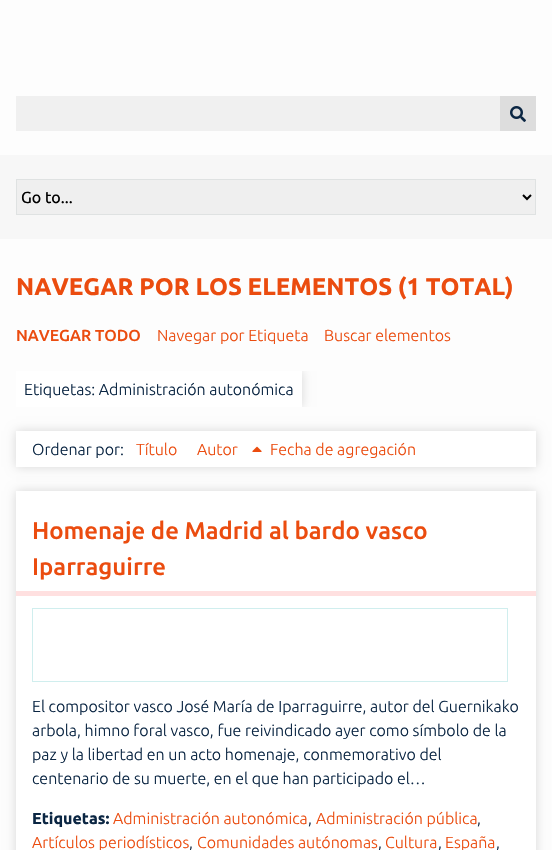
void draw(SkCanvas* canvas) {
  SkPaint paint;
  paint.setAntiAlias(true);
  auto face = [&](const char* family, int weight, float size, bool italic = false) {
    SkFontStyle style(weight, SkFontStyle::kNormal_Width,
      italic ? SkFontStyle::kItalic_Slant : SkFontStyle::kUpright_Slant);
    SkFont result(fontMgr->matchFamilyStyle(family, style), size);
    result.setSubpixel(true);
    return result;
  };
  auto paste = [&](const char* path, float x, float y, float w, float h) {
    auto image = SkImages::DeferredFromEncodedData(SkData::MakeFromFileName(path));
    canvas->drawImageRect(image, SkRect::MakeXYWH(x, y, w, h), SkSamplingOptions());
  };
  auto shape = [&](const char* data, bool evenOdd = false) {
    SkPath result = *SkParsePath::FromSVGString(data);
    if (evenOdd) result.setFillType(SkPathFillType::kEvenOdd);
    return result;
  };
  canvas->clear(0xfffdfdfd);
  paint.setColor(0xfff0f0f0);
  canvas->drawRect(SkRect::MakeXYWH(16, 96, 484, 35), paint);
  paint.setColor(0xffdddddd);
  canvas->drawRect(SkRect::MakeXYWH(500, 96, 36, 35), paint);
  paste("img/1.png", 510, 106, 16, 16);
  paint.setColor(0xfff7f7f7);
  canvas->drawRect(SkRect::MakeXYWH(0, 155, 552, 84), paint);
  paint.setColor(0xffefefef);
  canvas->drawRect(SkRect::MakeXYWH(16.5f, 179.5f, 519, 35), paint);
  paint.setStroke(true);
  paint.setStrokeWidth(1);
  paint.setColor(0xffdfe2e2);
  canvas->drawRect(SkRect::MakeXYWH(16.5f, 179.5f, 519, 35), paint);
  paint.setStrokeWidth(2);
  paint.setColor(0xff000000);
  canvas->drawPath(shape("M523 195L527 199L531 195"), paint);
  canvas->save();
  canvas->clipRect(SkRect::MakeXYWH(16, 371, 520, 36));
  paint.setStroke(false);
  paint.setColor(0x26000000);
  paint.setMaskFilter(SkMaskFilter::MakeBlur(kNormal_SkBlurStyle, 5));
  canvas->drawRect(SkRect::MakeXYWH(16, 371, 286, 36), paint);
  paint.setMaskFilter(nullptr);
  canvas->restore();
  paint.setColor(0xffffffff);
  canvas->drawRect(SkRect::MakeXYWH(16, 371, 286, 36), paint);
  paint.setColor(0x26000000);
  paint.setMaskFilter(SkMaskFilter::MakeBlur(kNormal_SkBlurStyle, 5));
  canvas->drawRect(SkRect::MakeXYWH(16, 431, 520, 36), paint);
  paint.setMaskFilter(nullptr);
  paint.setColor(0xffffffff);
  canvas->drawRect(SkRect::MakeXYWH(16, 431, 520, 36), paint);
  paste("img/2.png", 252, 446, 10, 6);
  paint.setColor(0x26000000);
  paint.setMaskFilter(SkMaskFilter::MakeBlur(kNormal_SkBlurStyle, 5));
  canvas->drawRect(SkRect::MakeXYWH(16, 491, 520, 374), paint);
  paint.setMaskFilter(nullptr);
  paint.setColor(0xffffffff);
  canvas->drawRect(SkRect::MakeXYWH(16, 491, 520, 359), paint);
  paint.setColor(0xffffe0e0);
  canvas->drawRect(SkRect::MakeXYWH(16, 591, 520, 5), paint);
  paint.setStroke(true);
  paint.setStrokeWidth(1);
  paint.setColor(0xffd0eeee);
  canvas->drawRect(SkRect::MakeXYWH(32.5f, 608.5f, 475, 73), paint);
  auto f0 = face("Ubuntu", 400, 16);
  paint.setStroke(false);
  paint.setColor(0xff000000);
  canvas->drawString("Go to...", 21, 203, f0, paint);
  auto f1 = face("Ubuntu", 700, 24);
  paint.setColor(0xffeb4c0f);
  canvas->drawString("NAVEGAR POR LOS ELEMENTOS (1 TOTAL)", 16, 295, f1, paint);
  auto f2 = face("Ubuntu", 500, 16);
  canvas->drawString("NAVEGAR TODO", 16, 341, f2, paint);
  auto f3 = face("Ubuntu", 300, 16);
  canvas->drawString("Navegar por Etiqueta", 157, 341, f3, paint);
  canvas->drawString("Buscar elementos", 324, 341, f3, paint);
  paint.setColor(0xff0b2643);
  canvas->drawString("Etiquetas: Administración autonómica", 24, 395, f3, paint);
  canvas->drawString("Ordenar por:", 32, 455, f3, paint);
  paint.setColor(0xffeb4c0f);
  {
    const struct { const char* s; float x, y; } items[] = {
      {"Título", 136, 455},
      {"Autor", 197, 455},
      {"Fecha de agregación", 270, 455},
    };
    for (auto [s, x, y] : items) {
      canvas->drawString(s, x, y, f3, paint);
    }
  }
  auto f4 = face("Ubuntu", 500, 24);
  canvas->drawString("Homenaje de Madrid al bardo vasco", 32, 539, f4, paint);
  canvas->drawString("Iparraguirre", 32, 575, f4, paint);
  paint.setColor(0xff0b2643);
  {
    const struct { const char* s; float x, y; } items[] = {
      {"El compositor vasco José María de Iparraguirre, autor del Guernikako", 32, 712},
      {"arbola, himno foral vasco, fue reivindicado ayer como símbolo de la", 32, 736},
      {"paz y la libertad en un acto homenaje, conmemorativo del", 32, 760},
      {"centenario de su muerte, en el que han participado el…", 32, 784},
    };
    for (auto [s, x, y] : items) {
      canvas->drawString(s, x, y, f3, paint);
    }
  }
  auto f5 = face("Ubuntu", 700, 16);
  canvas->drawString("Etiquetas:", 32, 824, f5, paint);
  paint.setColor(0xffeb4c0f);
  canvas->drawString("Administración autonómica", 113, 824, f3, paint);
  paint.setColor(0xff0b2643);
  canvas->drawString(",", 308, 824, f3, paint);
  paint.setColor(0xffeb4c0f);
  canvas->drawString("Administración pública", 316, 824, f3, paint);
  paint.setColor(0xff0b2643);
  canvas->drawString(",", 477, 824, f3, paint);
  paint.setColor(0xffeb4c0f);
  canvas->drawString("Artículos periodísticos", 32, 848, f3, paint);
  paint.setColor(0xff0b2643);
  canvas->drawString(",", 189, 848, f3, paint);
  paint.setColor(0xffeb4c0f);
  canvas->drawString("Comunidades autónomas", 197, 848, f3, paint);
  paint.setColor(0xff0b2643);
  canvas->drawString(",", 378, 848, f3, paint);
  paint.setColor(0xffeb4c0f);
  canvas->drawString("Cultura", 385, 848, f3, paint);
  paint.setColor(0xff0b2643);
  canvas->drawString(",", 438, 848, f3, paint);
  paint.setColor(0xffeb4c0f);
  canvas->drawString("España", 445, 848, f3, paint);
  paint.setColor(0xff0b2643);
  canvas->drawString(",", 496, 848, f3, paint);
}
